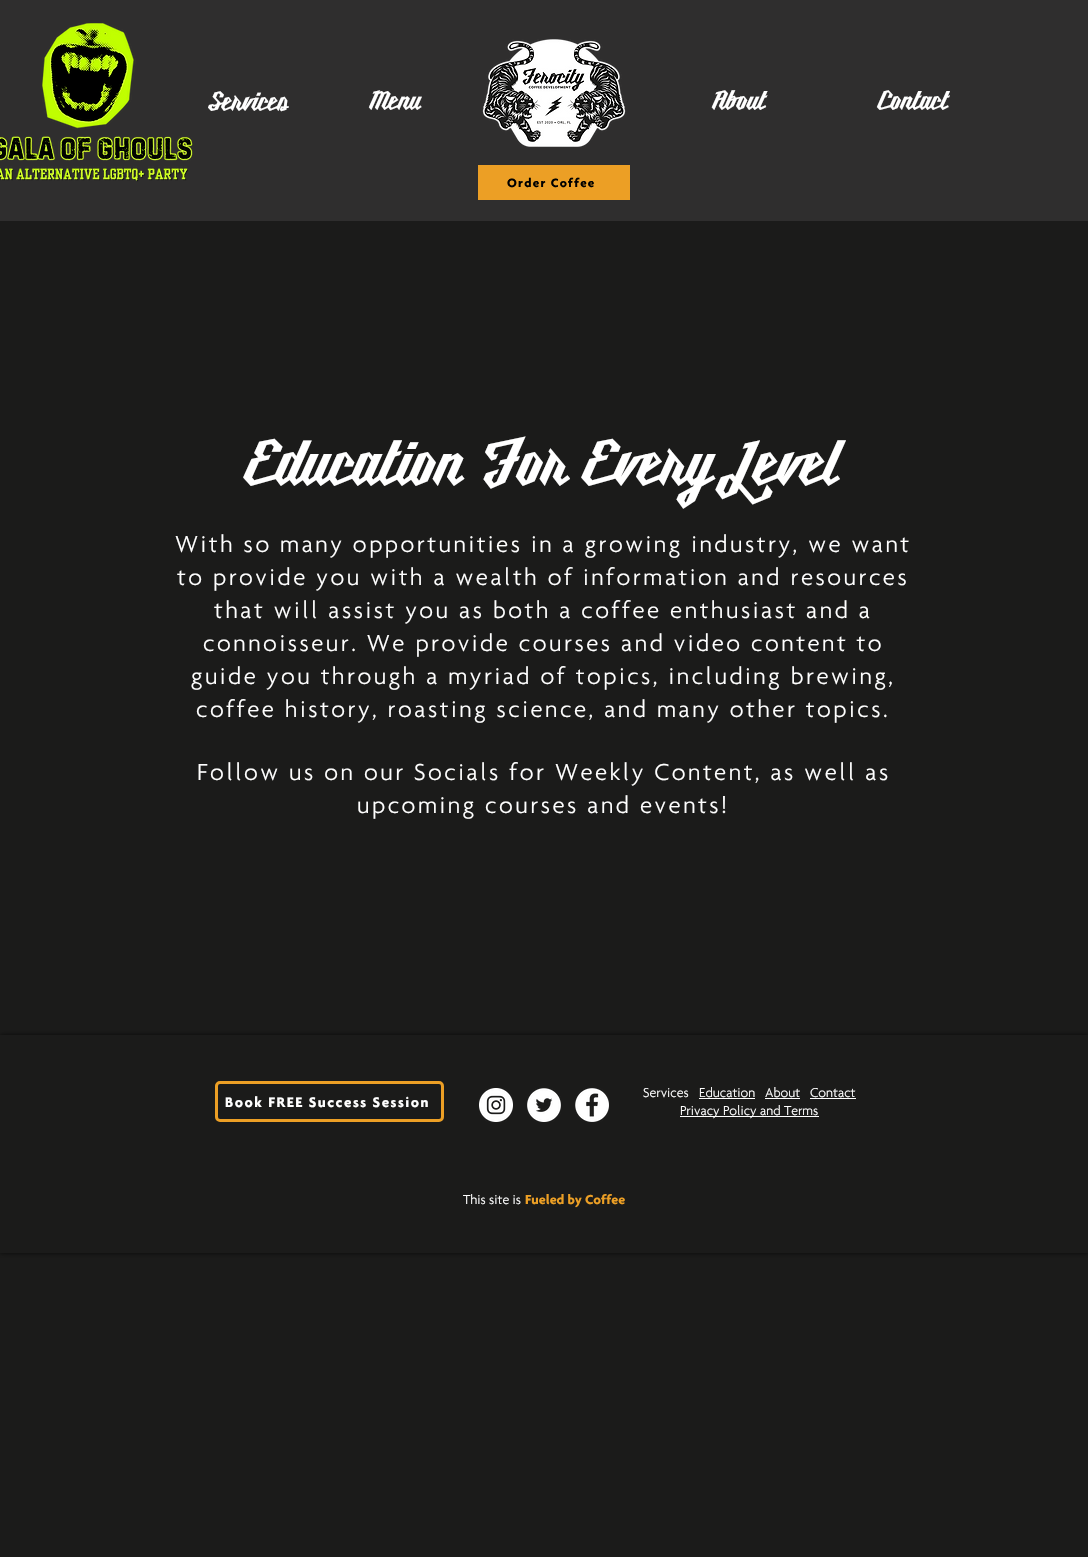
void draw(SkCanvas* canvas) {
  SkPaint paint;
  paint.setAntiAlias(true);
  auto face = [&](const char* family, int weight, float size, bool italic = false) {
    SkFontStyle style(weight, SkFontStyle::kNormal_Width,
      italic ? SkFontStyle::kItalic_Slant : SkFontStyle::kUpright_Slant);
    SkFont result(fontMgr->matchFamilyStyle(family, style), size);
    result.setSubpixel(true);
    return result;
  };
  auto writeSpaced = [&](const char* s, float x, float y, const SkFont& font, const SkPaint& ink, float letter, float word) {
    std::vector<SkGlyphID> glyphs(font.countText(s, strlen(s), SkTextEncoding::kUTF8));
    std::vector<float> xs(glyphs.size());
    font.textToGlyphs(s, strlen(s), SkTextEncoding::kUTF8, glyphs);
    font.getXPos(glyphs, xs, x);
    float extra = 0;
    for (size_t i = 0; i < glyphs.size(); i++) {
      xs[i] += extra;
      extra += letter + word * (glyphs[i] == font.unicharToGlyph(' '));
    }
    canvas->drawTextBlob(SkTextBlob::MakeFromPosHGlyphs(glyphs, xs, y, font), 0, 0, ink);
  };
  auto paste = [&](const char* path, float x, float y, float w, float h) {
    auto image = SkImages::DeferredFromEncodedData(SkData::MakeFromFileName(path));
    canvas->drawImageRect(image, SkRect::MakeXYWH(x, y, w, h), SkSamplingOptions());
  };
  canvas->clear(0xff1b1b1a);
  paint.setColor(0xff2f2e2e);
  canvas->drawRect(SkRect::MakeXYWH(0, 0, 1088, 221), paint);
  paste("img/1.png", 0, 23, 193, 159);
  paste("img/2.png", 482, 39, 144, 108);
  paint.setColor(0xffec9f25);
  canvas->drawRect(SkRect::MakeXYWH(478, 165, 152, 35), paint);
  paint.setColor(0xb3000000);
  paint.setMaskFilter(SkMaskFilter::MakeBlur(kNormal_SkBlurStyle, 2.5f));
  canvas->drawRect(SkRect::MakeXYWH(0, 1035, 1088, 218), paint);
  paint.setMaskFilter(nullptr);
  paint.setColor(0xff1b1b1a);
  canvas->drawRect(SkRect::MakeXYWH(0, 1035, 1088, 218), paint);
  paint.setStroke(true);
  paint.setStrokeWidth(3);
  paint.setColor(0xffec9f25);
  canvas->drawRoundRect(SkRect::MakeXYWH(216.5f, 1082.5f, 226, 38), 3.5f, 3.5f, paint);
  paste("img/3.png", 479, 1088, 34, 34);
  paste("img/4.png", 527, 1088, 34, 34);
  paste("img/5.png", 575, 1088, 34, 34);
  paint.setStroke(false);
  {
    const struct { float x, y, w, h; SkColor color; } items[] = {
      {699, 1098, 56, 1, 0xffffffff},
      {765, 1098, 35, 1, 0xffffffff},
      {810, 1098, 46, 1, 0xffffffff},
      {680, 1116, 139, 1, 0xffffffff},
    };
    for (auto [x, y, w, h, color] : items) {
      paint.setColor(color);
      canvas->drawRect(SkRect::MakeXYWH(x, y, w, h), paint);
    }
  }
  auto f0 = face("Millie", 700, 25);
  {
    const struct { const char* s; float x, y; } items[] = {
      {"Services", 208, 111},
      {"Menu", 368, 110},
      {"About", 711, 110},
      {"Contact", 877, 110},
    };
    for (auto [s, x, y] : items) {
      canvas->drawString(s, x, y, f0, paint);
    }
  }
  auto f1 = face("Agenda", 700, 13);
  paint.setColor(0xff000000);
  writeSpaced("Order Coffee", 507, 187, f1, paint, 1.25f, 0);
  auto f2 = face("Millie", 700, 60);
  paint.setColor(0xffffffff);
  writeSpaced("Education For Every Level", 243, 486, f2, paint, 0, -0.5f);
  auto f3 = face("Agenda", 300, 25);
  {
    const struct { const char* s; float x, y; } items[] = {
      {"With so many opportunities in a growing industry, we want", 175, 552},
      {"to provide you with a wealth of information and resources", 177, 585},
      {"that will assist you as both a coffee enthusiast and a", 214, 618},
      {"connoisseur. We provide courses and video content to", 203, 651},
      {"guide you through a myriad of topics, including brewing,", 191, 684},
      {"coffee history, roasting science, and many other topics.", 196, 717},
      {"Follow us on our Socials for Weekly Content, as well as", 197, 780},
      {"upcoming courses and events!", 357, 813},
    };
    for (auto [s, x, y] : items) {
      writeSpaced(s, x, y, f3, paint, 2.5f, 0);
    }
  }
  auto f4 = face("Agenda", 700, 15);
  writeSpaced("Book FREE Success Session", 225, 1107, f4, paint, 1.5f, 0);
  auto f5 = face("Agenda", 300, 14);
  {
    const struct { const char* s; float x, y; } items[] = {
      {"Services", 643, 1097},
      {"Education", 699, 1097},
      {"About", 765, 1097},
      {"Contact", 810, 1097},
      {"Privacy Policy and Terms", 680, 1115},
      {"This site is", 463, 1204},
    };
    for (auto [s, x, y] : items) {
      canvas->drawString(s, x, y, f5, paint);
    }
  }
  auto f6 = face("Agenda", 700, 14);
  paint.setColor(0xffec9f25);
  canvas->drawString("Fueled by Coffee", 525, 1204, f6, paint);
}
